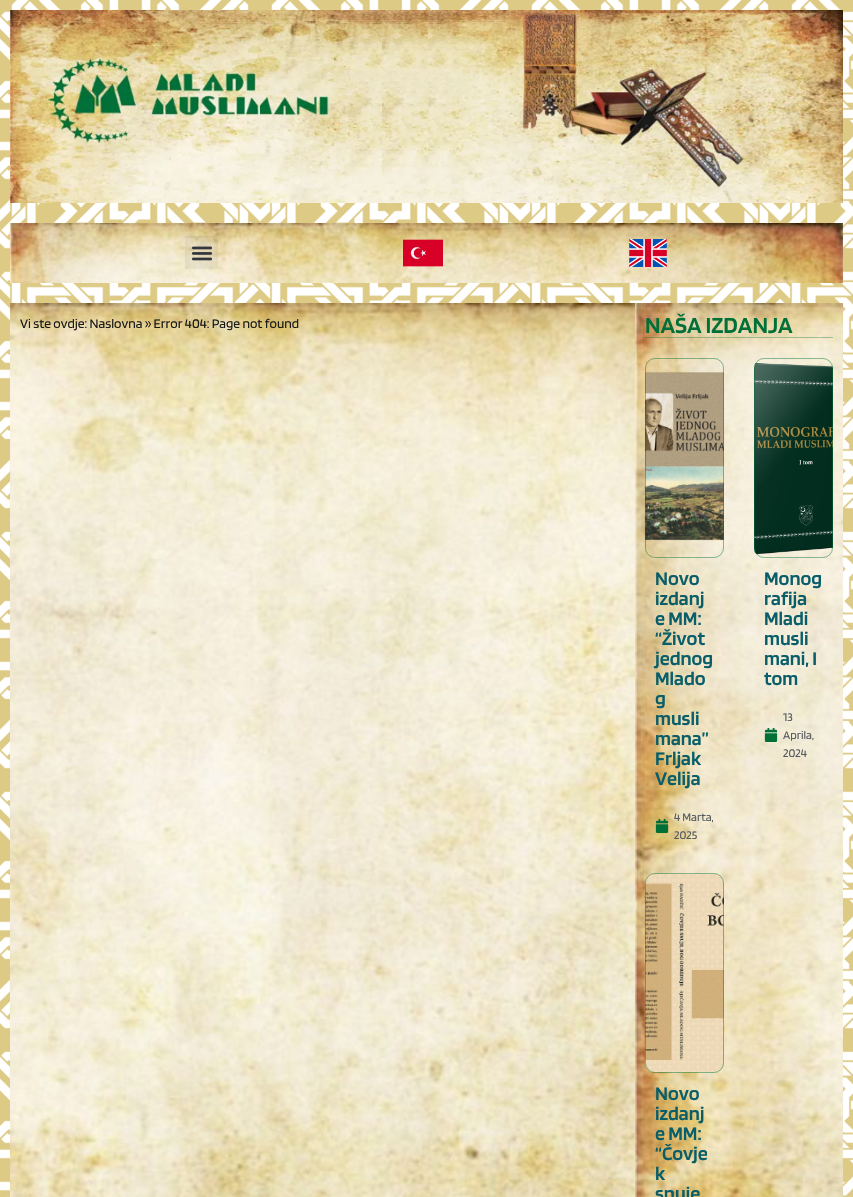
void draw(SkCanvas* canvas) {
  SkPaint paint;
  paint.setAntiAlias(true);
  auto face = [&](const char* family, int weight, float size, bool italic = false) {
    SkFontStyle style(weight, SkFontStyle::kNormal_Width,
      italic ? SkFontStyle::kItalic_Slant : SkFontStyle::kUpright_Slant);
    SkFont result(fontMgr->matchFamilyStyle(family, style), size);
    result.setSubpixel(true);
    return result;
  };
  auto paste = [&](const char* path, float x, float y, float w, float h) {
    auto image = SkImages::DeferredFromEncodedData(SkData::MakeFromFileName(path));
    canvas->drawImageRect(image, SkRect::MakeXYWH(x, y, w, h), SkSamplingOptions());
  };
  canvas->clear(0xffffffff);
  paste("img/1.png", 0, 0, 853, 1197);
  paste("img/2.png", 10, 10, 833, 193);
  paste("img/3.png", 10, 223, 833, 60);
  paint.setColor(0x0d000000);
  canvas->drawRect(SkRect::MakeXYWH(185, 236, 33, 33), paint);
  paste("img/4.png", 191, 246, 21, 15);
  paste("img/5.png", 403, 239, 40, 28);
  paste("img/6.png", 629, 239, 38, 28);
  paste("img/7.png", 10, 303, 625, 894);
  paste("img/8.png", 635, 303, 208, 894);
  paint.setColor(0x57007038);
  canvas->drawRect(SkRect::MakeXYWH(645, 337, 188, 1), paint);
  paste("img/9.png", 645, 372, 79, 169);
  paint.setStroke(true);
  paint.setStrokeWidth(1);
  canvas->drawRoundRect(SkRect::MakeXYWH(645.5f, 358.5f, 78, 199), 9.5f, 9.5f, paint);
  paint.setColor(0x2b007038);
  canvas->drawRoundRect(SkRect::MakeXYWH(645.5f, 358.5f, 78, 199), 9.5f, 9.5f, paint);
  paste("img/10.png", 655, 819, 14, 14);
  paste("img/11.png", 754, 363, 79, 192);
  paint.setColor(0x57007038);
  canvas->drawRoundRect(SkRect::MakeXYWH(754.5f, 358.5f, 78, 199), 9.5f, 9.5f, paint);
  paint.setColor(0x2b007038);
  canvas->drawRoundRect(SkRect::MakeXYWH(754.5f, 358.5f, 78, 199), 9.5f, 9.5f, paint);
  paste("img/12.png", 764, 728, 14, 14);
  paste("img/13.png", 645, 874, 79, 198);
  paint.setColor(0x57007038);
  canvas->drawRoundRect(SkRect::MakeXYWH(645.5f, 873.5f, 78, 199), 9.5f, 9.5f, paint);
  paint.setColor(0x2b007038);
  canvas->drawRoundRect(SkRect::MakeXYWH(645.5f, 873.5f, 78, 199), 9.5f, 9.5f, paint);
  auto f0 = face("Blinker", 400, 13.6f);
  paint.setStroke(false);
  paint.setColor(0xff181818);
  canvas->drawString("Vi ste ovdje: Naslovna » Error 404: Page not found", 20, 328, f0, paint);
  auto f1 = face("Blinker", 600, 24);
  paint.setColor(0xff007038);
  canvas->drawString("NAŠA IZDANJA", 645, 333, f1, paint);
  auto f2 = face("Blinker", 600, 20);
  paint.setColor(0xff0a5e69);
  {
    const struct { const char* s; float x, y; } items[] = {
      {"Novo", 655, 585},
      {"izdanj", 655, 605},
      {"e MM:", 655, 625},
      {"“Život", 655, 645},
      {"jednog", 655, 665},
      {"Mlado", 655, 685},
      {"g", 655, 705},
      {"musli", 655, 725},
      {"mana”", 655, 745},
      {"Frljak", 655, 765},
      {"Velija", 655, 785},
    };
    for (auto [s, x, y] : items) {
      canvas->drawString(s, x, y, f2, paint);
    }
  }
  auto f3 = face("Blinker", 400, 12);
  paint.setColor(0xff54595f);
  canvas->drawString("4 Marta,", 674, 821, f3, paint);
  canvas->drawString("2025", 674, 839, f3, paint);
  paint.setColor(0xff0a5e69);
  {
    const struct { const char* s; float x, y; } items[] = {
      {"Monog", 764, 585},
      {"rafija", 764, 605},
      {"Mladi", 764, 625},
      {"musli", 764, 645},
      {"mani, I", 764, 665},
      {"tom", 764, 685},
    };
    for (auto [s, x, y] : items) {
      canvas->drawString(s, x, y, f2, paint);
    }
  }
  paint.setColor(0xff54595f);
  {
    const struct { const char* s; float x, y; } items[] = {
      {"13", 783, 721},
      {"Aprila,", 783, 739},
      {"2024", 783, 757},
    };
    for (auto [s, x, y] : items) {
      canvas->drawString(s, x, y, f3, paint);
    }
  }
  paint.setColor(0xff0a5e69);
  {
    const struct { const char* s; float x, y; } items[] = {
      {"Novo", 655, 1100},
      {"izdanj", 655, 1120},
      {"e MM:", 655, 1140},
      {"“Čovje", 655, 1160},
      {"k", 655, 1180},
      {"snuje", 655, 1200},
    };
    for (auto [s, x, y] : items) {
      canvas->drawString(s, x, y, f2, paint);
    }
  }
}
